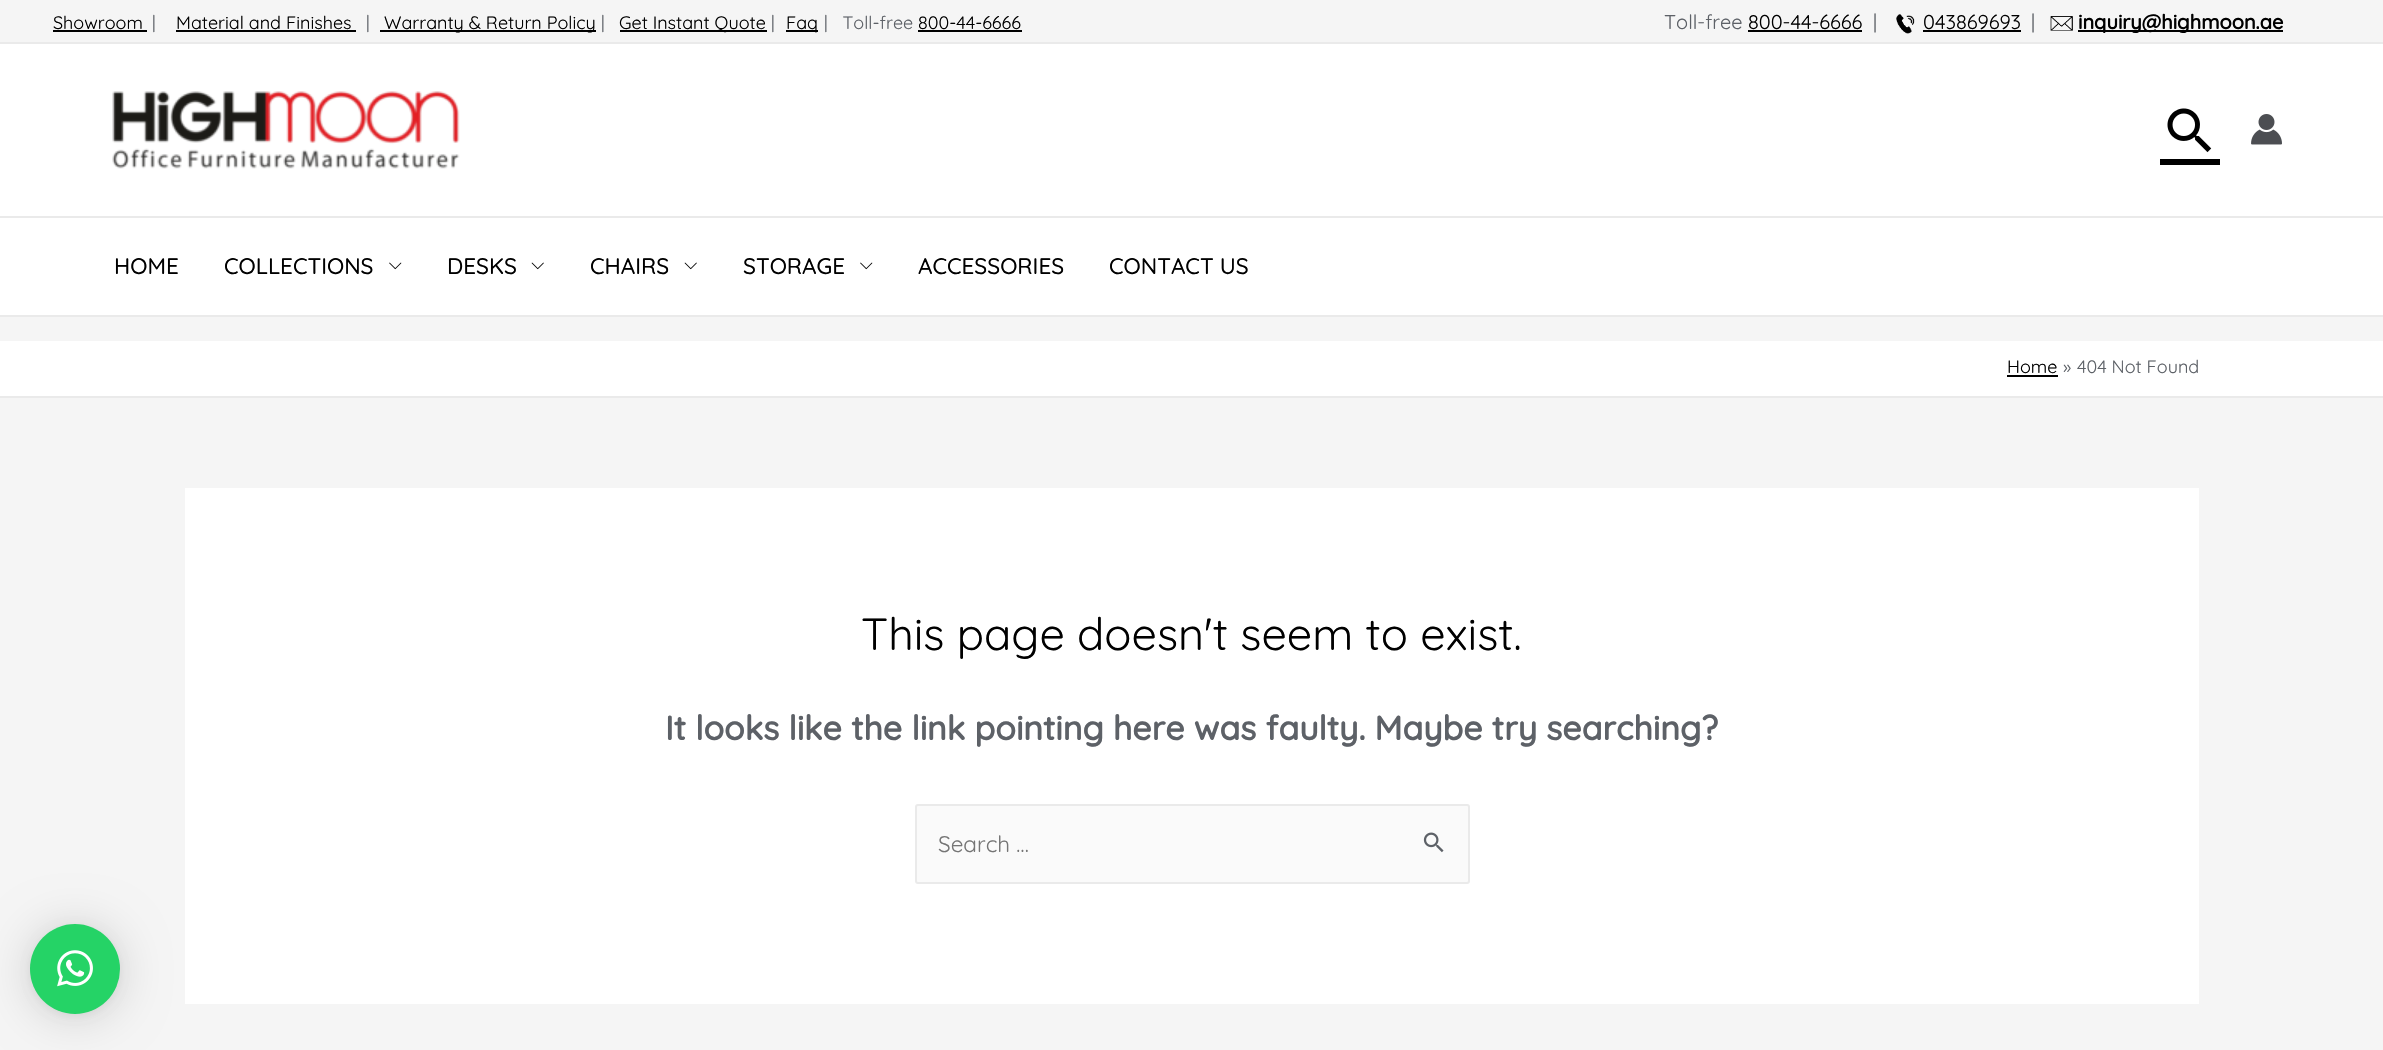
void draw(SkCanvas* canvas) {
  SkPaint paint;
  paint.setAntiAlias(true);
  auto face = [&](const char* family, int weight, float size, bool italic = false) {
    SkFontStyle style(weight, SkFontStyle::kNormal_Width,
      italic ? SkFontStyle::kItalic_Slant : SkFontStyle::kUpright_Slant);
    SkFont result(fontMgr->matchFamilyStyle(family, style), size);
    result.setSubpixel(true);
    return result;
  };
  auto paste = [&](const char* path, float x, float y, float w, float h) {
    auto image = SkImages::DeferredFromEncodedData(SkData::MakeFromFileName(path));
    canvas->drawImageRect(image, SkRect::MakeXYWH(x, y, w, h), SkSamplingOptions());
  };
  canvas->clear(0xfff5f5f5);
  {
    const struct { float x, y, w, h; SkColor color; } items[] = {
      {0, 42, 2383, 2, 0xffeaeaea},
      {53, 30, 94, 2, 0xff000000},
      {176, 30, 180, 2, 0xff000000},
      {380, 30, 216, 2, 0xff000000},
      {620, 30, 147, 2, 0xff000000},
      {786, 30, 32, 2, 0xff000000},
      {918, 30, 104, 2, 0xff000000},
      {1748, 30, 114, 2, 0xff000000},
    };
    for (auto [x, y, w, h, color] : items) {
      paint.setColor(color);
      canvas->drawRect(SkRect::MakeXYWH(x, y, w, h), paint);
    }
  }
  paste("img/1.png", 1896, 14, 19, 20);
  canvas->drawRect(SkRect::MakeXYWH(1923, 30, 98, 2), paint);
  paste("img/2.png", 2050, 16, 23, 15);
  {
    const struct { float x, y, w, h; SkColor color; } items[] = {
      {2078, 30, 205, 2, 0xff000000},
      {0, 44, 2383, 172, 0xffffffff},
      {0, 216, 2383, 2, 0xffeaeaea},
    };
    for (auto [x, y, w, h, color] : items) {
      paint.setColor(color);
      canvas->drawRect(SkRect::MakeXYWH(x, y, w, h), paint);
    }
  }
  paste("img/3.png", 112, 91, 348, 78);
  paint.setColor(0xff000000);
  canvas->drawRect(SkRect::MakeXYWH(2160, 159, 60, 6), paint);
  paste("img/4.png", 2167, 108, 45, 45);
  paste("img/5.png", 2251, 114, 31, 31);
  paint.setColor(0xffffffff);
  canvas->drawRect(SkRect::MakeXYWH(0, 218, 2383, 97), paint);
  paint.setColor(0xffeaeaea);
  canvas->drawRect(SkRect::MakeXYWH(0, 315, 2383, 2), paint);
  paste("img/6.png", 389, 262, 13, 8);
  paste("img/7.png", 531, 262, 13, 8);
  paste("img/7.png", 684, 262, 13, 8);
  paste("img/6.png", 860, 262, 13, 8);
  {
    const struct { float x, y, w, h; SkColor color; } items[] = {
      {0, 341, 2383, 55, 0xffffffff},
      {0, 396, 2383, 2, 0xffeaeaea},
      {2007, 375, 51, 2, 0xff000000},
      {185, 488, 2014, 516, 0xffffffff},
    };
    for (auto [x, y, w, h, color] : items) {
      paint.setColor(color);
      canvas->drawRect(SkRect::MakeXYWH(x, y, w, h), paint);
    }
  }
  paint.setColor(0xfffafafa);
  canvas->drawRoundRect(SkRect::MakeXYWH(916, 805, 553, 78), 2, 2, paint);
  paint.setStroke(true);
  paint.setStrokeWidth(2);
  paint.setColor(0xffeaeaea);
  canvas->drawRoundRect(SkRect::MakeXYWH(916, 805, 553, 78), 2, 2, paint);
  paste("img/8.png", 1423, 832, 21, 21);
  paint.setStroke(false);
  paint.setColor(0x29000000);
  paint.setMaskFilter(SkMaskFilter::MakeBlur(kNormal_SkBlurStyle, 24));
  canvas->drawRoundRect(SkRect::MakeXYWH(30, 927, 90, 90), 45, 45, paint);
  paint.setMaskFilter(nullptr);
  paint.setColor(0x0f000000);
  paint.setMaskFilter(SkMaskFilter::MakeBlur(kNormal_SkBlurStyle, 4.5f));
  canvas->drawRoundRect(SkRect::MakeXYWH(30, 926, 90, 90), 45, 45, paint);
  paint.setMaskFilter(nullptr);
  paint.setColor(0xff25d366);
  canvas->drawCircle(75, 969, 45, paint);
  paste("img/9.png", 57, 950, 36, 37);
  auto f0 = face("Quicksand", 400, 18);
  paint.setColor(0xff000000);
  canvas->drawString("Showroom", 53, 29, f0, paint);
  paint.setColor(0xff5d6167);
  canvas->drawString("|", 152, 29, f0, paint);
  paint.setColor(0xff000000);
  canvas->drawString("Material and Finishes", 176, 29, f0, paint);
  paint.setColor(0xff5d6167);
  canvas->drawString("|", 366, 29, f0, paint);
  paint.setColor(0xff000000);
  canvas->drawString("Warranty & Return Policy", 384, 29, f0, paint);
  paint.setColor(0xff5d6167);
  canvas->drawString("|", 601, 29, f0, paint);
  paint.setColor(0xff000000);
  canvas->drawString("Get Instant Quote", 619, 29, f0, paint);
  paint.setColor(0xff5d6167);
  canvas->drawString("|", 771, 29, f0, paint);
  paint.setColor(0xff000000);
  canvas->drawString("Faq", 786, 29, f0, paint);
  paint.setColor(0xff5d6167);
  canvas->drawString("|   Toll-free", 824, 29, f0, paint);
  paint.setColor(0xff000000);
  canvas->drawString("800-44-6666", 918, 29, f0, paint);
  auto f1 = face("Quicksand", 400, 20);
  paint.setColor(0xff5d6167);
  canvas->drawString("Toll-free", 1664, 29, f1, paint);
  paint.setColor(0xff000000);
  canvas->drawString("800-44-6666", 1748, 29, f1, paint);
  paint.setColor(0xff5d6167);
  canvas->drawString("|", 1873, 29, f1, paint);
  paint.setColor(0xff000000);
  canvas->drawString("043869693", 1923, 29, f1, paint);
  paint.setColor(0xff5d6167);
  canvas->drawString("|", 2031, 29, f1, paint);
  auto f2 = face("Quicksand", 700, 20);
  paint.setColor(0xff000000);
  canvas->drawString("inquiry@highmoon.ae", 2078, 29, f2, paint);
  auto f3 = face("Quicksand", 500, 22.5f);
  {
    const struct { const char* s; float x, y; } items[] = {
      {"HOME", 114, 274},
      {"COLLECTIONS", 224, 274},
      {"DESKS", 447, 274},
      {"CHAIRS", 590, 274},
      {"STORAGE", 743, 274},
      {"ACCESSORIES", 918, 274},
      {"CONTACT US", 1109, 274},
    };
    for (auto [s, x, y] : items) {
      canvas->drawString(s, x, y, f3, paint);
    }
  }
  canvas->drawString("Home", 2007, 373, f0, paint);
  paint.setColor(0xff5d6167);
  canvas->drawString("»", 2063, 373, f0, paint);
  canvas->drawString("404 Not Found", 2077, 373, f0, paint);
  auto f4 = face("Quicksand", 400, 45);
  paint.setColor(0xff000000);
  canvas->drawString("This page doesn't seem to exist.", 861, 650, f4, paint);
  auto f5 = face("Quicksand", 700, 33.75f);
  paint.setColor(0xff5d6167);
  canvas->drawString("It looks like the link pointing here was faulty. Maybe try searching?", 665, 740, f5, paint);
  auto f6 = face("Quicksand", 400, 22.5f);
  paint.setColor(0xff757575);
  canvas->drawString("Search …", 938, 852, f6, paint);
}
